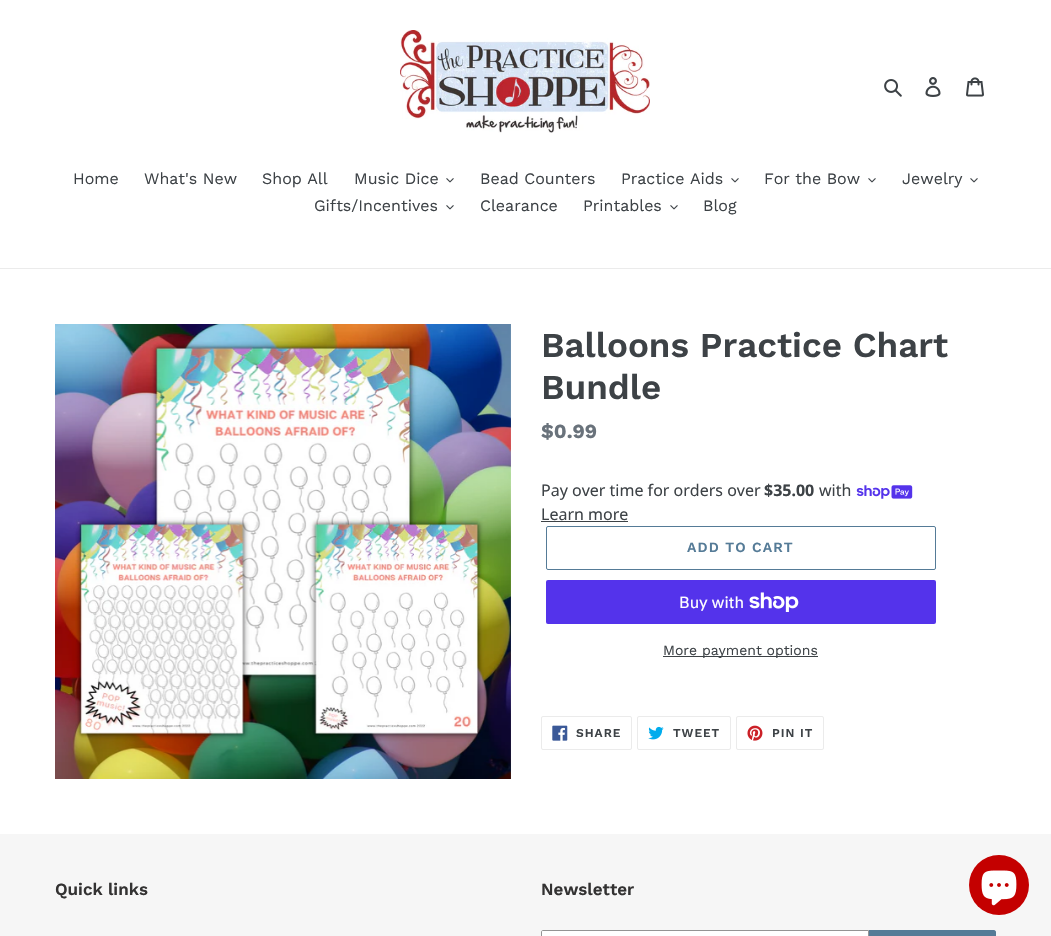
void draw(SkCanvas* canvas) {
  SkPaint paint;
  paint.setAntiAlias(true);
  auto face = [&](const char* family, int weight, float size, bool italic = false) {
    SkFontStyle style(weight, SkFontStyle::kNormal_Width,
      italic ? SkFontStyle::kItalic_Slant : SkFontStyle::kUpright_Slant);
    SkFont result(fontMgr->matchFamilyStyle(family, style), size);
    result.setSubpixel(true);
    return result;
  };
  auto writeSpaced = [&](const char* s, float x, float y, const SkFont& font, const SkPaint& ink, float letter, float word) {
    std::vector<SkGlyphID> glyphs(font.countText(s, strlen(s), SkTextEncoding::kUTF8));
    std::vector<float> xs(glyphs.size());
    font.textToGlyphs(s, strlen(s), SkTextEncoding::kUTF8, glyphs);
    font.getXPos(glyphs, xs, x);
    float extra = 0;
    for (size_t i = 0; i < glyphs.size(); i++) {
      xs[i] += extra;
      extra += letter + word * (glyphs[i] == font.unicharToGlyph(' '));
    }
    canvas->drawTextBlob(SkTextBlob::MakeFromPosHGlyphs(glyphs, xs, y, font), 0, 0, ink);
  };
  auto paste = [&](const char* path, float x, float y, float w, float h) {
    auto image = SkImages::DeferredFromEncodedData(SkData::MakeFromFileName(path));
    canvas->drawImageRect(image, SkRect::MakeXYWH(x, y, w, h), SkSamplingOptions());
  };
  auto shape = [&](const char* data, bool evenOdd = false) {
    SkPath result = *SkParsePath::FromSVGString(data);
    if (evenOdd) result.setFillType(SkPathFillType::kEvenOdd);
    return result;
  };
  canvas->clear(0xffffffff);
  paste("img/1.png", 400, 30, 250, 103);
  paste("img/2.png", 884, 79, 18, 18);
  paste("img/3.png", 925, 77, 16, 20);
  paste("img/4.png", 966, 77, 18, 20);
  paint.setColor(0xffebebeb);
  canvas->drawRect(SkRect::MakeXYWH(0, 268, 1051, 1), paint);
  paste("img/5.png", 446, 178, 8, 5);
  paste("img/5.png", 731, 178, 8, 5);
  paste("img/5.png", 868, 178, 8, 5);
  paste("img/5.png", 970, 178, 8, 5);
  paste("img/5.png", 446, 205, 8, 5);
  paste("img/5.png", 670, 205, 8, 5);
  paste("img/6.png", 55, 324, 456, 455);
  paste("img/7.png", 856, 485, 57, 14);
  paint.setColor(0xff3d4246);
  canvas->drawRect(SkRect::MakeXYWH(541, 521, 87, 1), paint);
  paint.setStroke(true);
  paint.setStrokeWidth(1);
  paint.setColor(0xff557b97);
  canvas->drawRoundRect(SkRect::MakeXYWH(546.5f, 526.5f, 389, 43), 1.5f, 1.5f, paint);
  paint.setStroke(false);
  paint.setColor(0xff5433eb);
  canvas->drawRoundRect(SkRect::MakeXYWH(546, 580, 390, 44), 2, 2, paint);
  paste("img/8.png", 749, 592, 50, 20);
  paint.setColor(0xff3d4246);
  canvas->drawRect(SkRect::MakeXYWH(663, 656, 155, 1), paint);
  paint.setStroke(true);
  paint.setColor(0xffebebeb);
  canvas->drawRoundRect(SkRect::MakeXYWH(541.5f, 716.5f, 90, 33), 1.5f, 1.5f, paint);
  paste("img/9.png", 552, 725, 16, 16);
  canvas->drawRoundRect(SkRect::MakeXYWH(637.5f, 716.5f, 93, 33), 1.5f, 1.5f, paint);
  paste("img/10.png", 648, 726, 16, 14);
  canvas->drawRoundRect(SkRect::MakeXYWH(736.5f, 716.5f, 87, 33), 1.5f, 1.5f, paint);
  paste("img/11.png", 747, 725, 16, 16);
  paint.setStroke(false);
  paint.setColor(0xfff6f6f6);
  canvas->drawRect(SkRect::MakeXYWH(0, 834, 1051, 102), paint);
  paint.setColor(0xffffffff);
  canvas->drawPath(shape("M543 930.5H868.5V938.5H543C542 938.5 541.5 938 541.5 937V932C541.5 931 542 930.5 543 930.5Z"), paint);
  paint.setStroke(true);
  paint.setColor(0xff949494);
  canvas->drawPath(shape("M543 930.5H868.5V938.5H543C542 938.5 541.5 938 541.5 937V932C541.5 931 542 930.5 543 930.5Z"), paint);
  paint.setStroke(false);
  paint.setColor(0xff557b97);
  canvas->drawPath(shape("M869 930H994C995 930 996 931 996 932V936C996 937 995 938 994 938H869Z"), paint);
  paint.setColor(0xffc40000);
  canvas->drawCircle(999, 885, 30, paint);
  paste("img/12.png", 981, 870, 36, 36);
  auto f0 = face("Work Sans", 400, 16);
  paint.setColor(0xff3d4246);
  {
    const struct { const char* s; float x, y; } items[] = {
      {"Home", 73, 184},
      {"What's New", 144, 184},
      {"Shop All", 262, 184},
      {"Music Dice", 354, 184},
      {"Bead Counters", 480, 184},
      {"Practice Aids", 621, 184},
      {"For the Bow", 764, 184},
      {"Jewelry", 902, 184},
      {"Gifts/Incentives", 314, 211},
      {"Clearance", 480, 211},
      {"Printables", 583, 211},
      {"Blog", 703, 211},
    };
    for (auto [s, x, y] : items) {
      canvas->drawString(s, x, y, f0, paint);
    }
  }
  auto f1 = face("Work Sans", 600, 35);
  canvas->drawString("Balloons Practice Chart", 541, 357, f1, paint);
  canvas->drawString("Bundle", 541, 399, f1, paint);
  auto f2 = face("Work Sans", 700, 20);
  paint.setColor(0xff69727b);
  canvas->drawString("$0.99", 541, 438, f2, paint);
  auto f3 = face("Noto Sans", 400, 16);
  paint.setColor(0xff3d4246);
  canvas->drawString("Pay over time for orders over", 541, 496, f3, paint);
  auto f4 = face("Noto Sans", 700, 16);
  canvas->drawString("$35.00", 764, 496, f4, paint);
  canvas->drawString("with", 819, 496, f3, paint);
  canvas->drawString("Learn more", 541, 520, f3, paint);
  auto f5 = face("Work Sans", 600, 14);
  paint.setColor(0xff557b97);
  writeSpaced("ADD TO CART", 687, 552, f5, paint, 1.1f, 0);
  auto f6 = face("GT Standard", 400, 16);
  paint.setColor(0xffffffff);
  canvas->drawString("Buy with", 679, 608, f6, paint);
  auto f7 = face("Work Sans", 400, 14);
  paint.setColor(0xff3d4246);
  canvas->drawString("More payment options", 663, 655, f7, paint);
  auto f8 = face("Work Sans", 600, 12);
  {
    const struct { const char* s; float x, y; } items[] = {
      {"SHARE", 576, 737},
      {"TWEET", 673, 737},
      {"PIN IT", 772, 737},
    };
    for (auto [s, x, y] : items) {
      writeSpaced(s, x, y, f8, paint, 1, 0);
    }
  }
  auto f9 = face("Work Sans", 600, 17);
  paint.setColor(0xff333232);
  canvas->drawString("Quick links", 55, 895, f9, paint);
  canvas->drawString("Newsletter", 541, 895, f9, paint);
}
